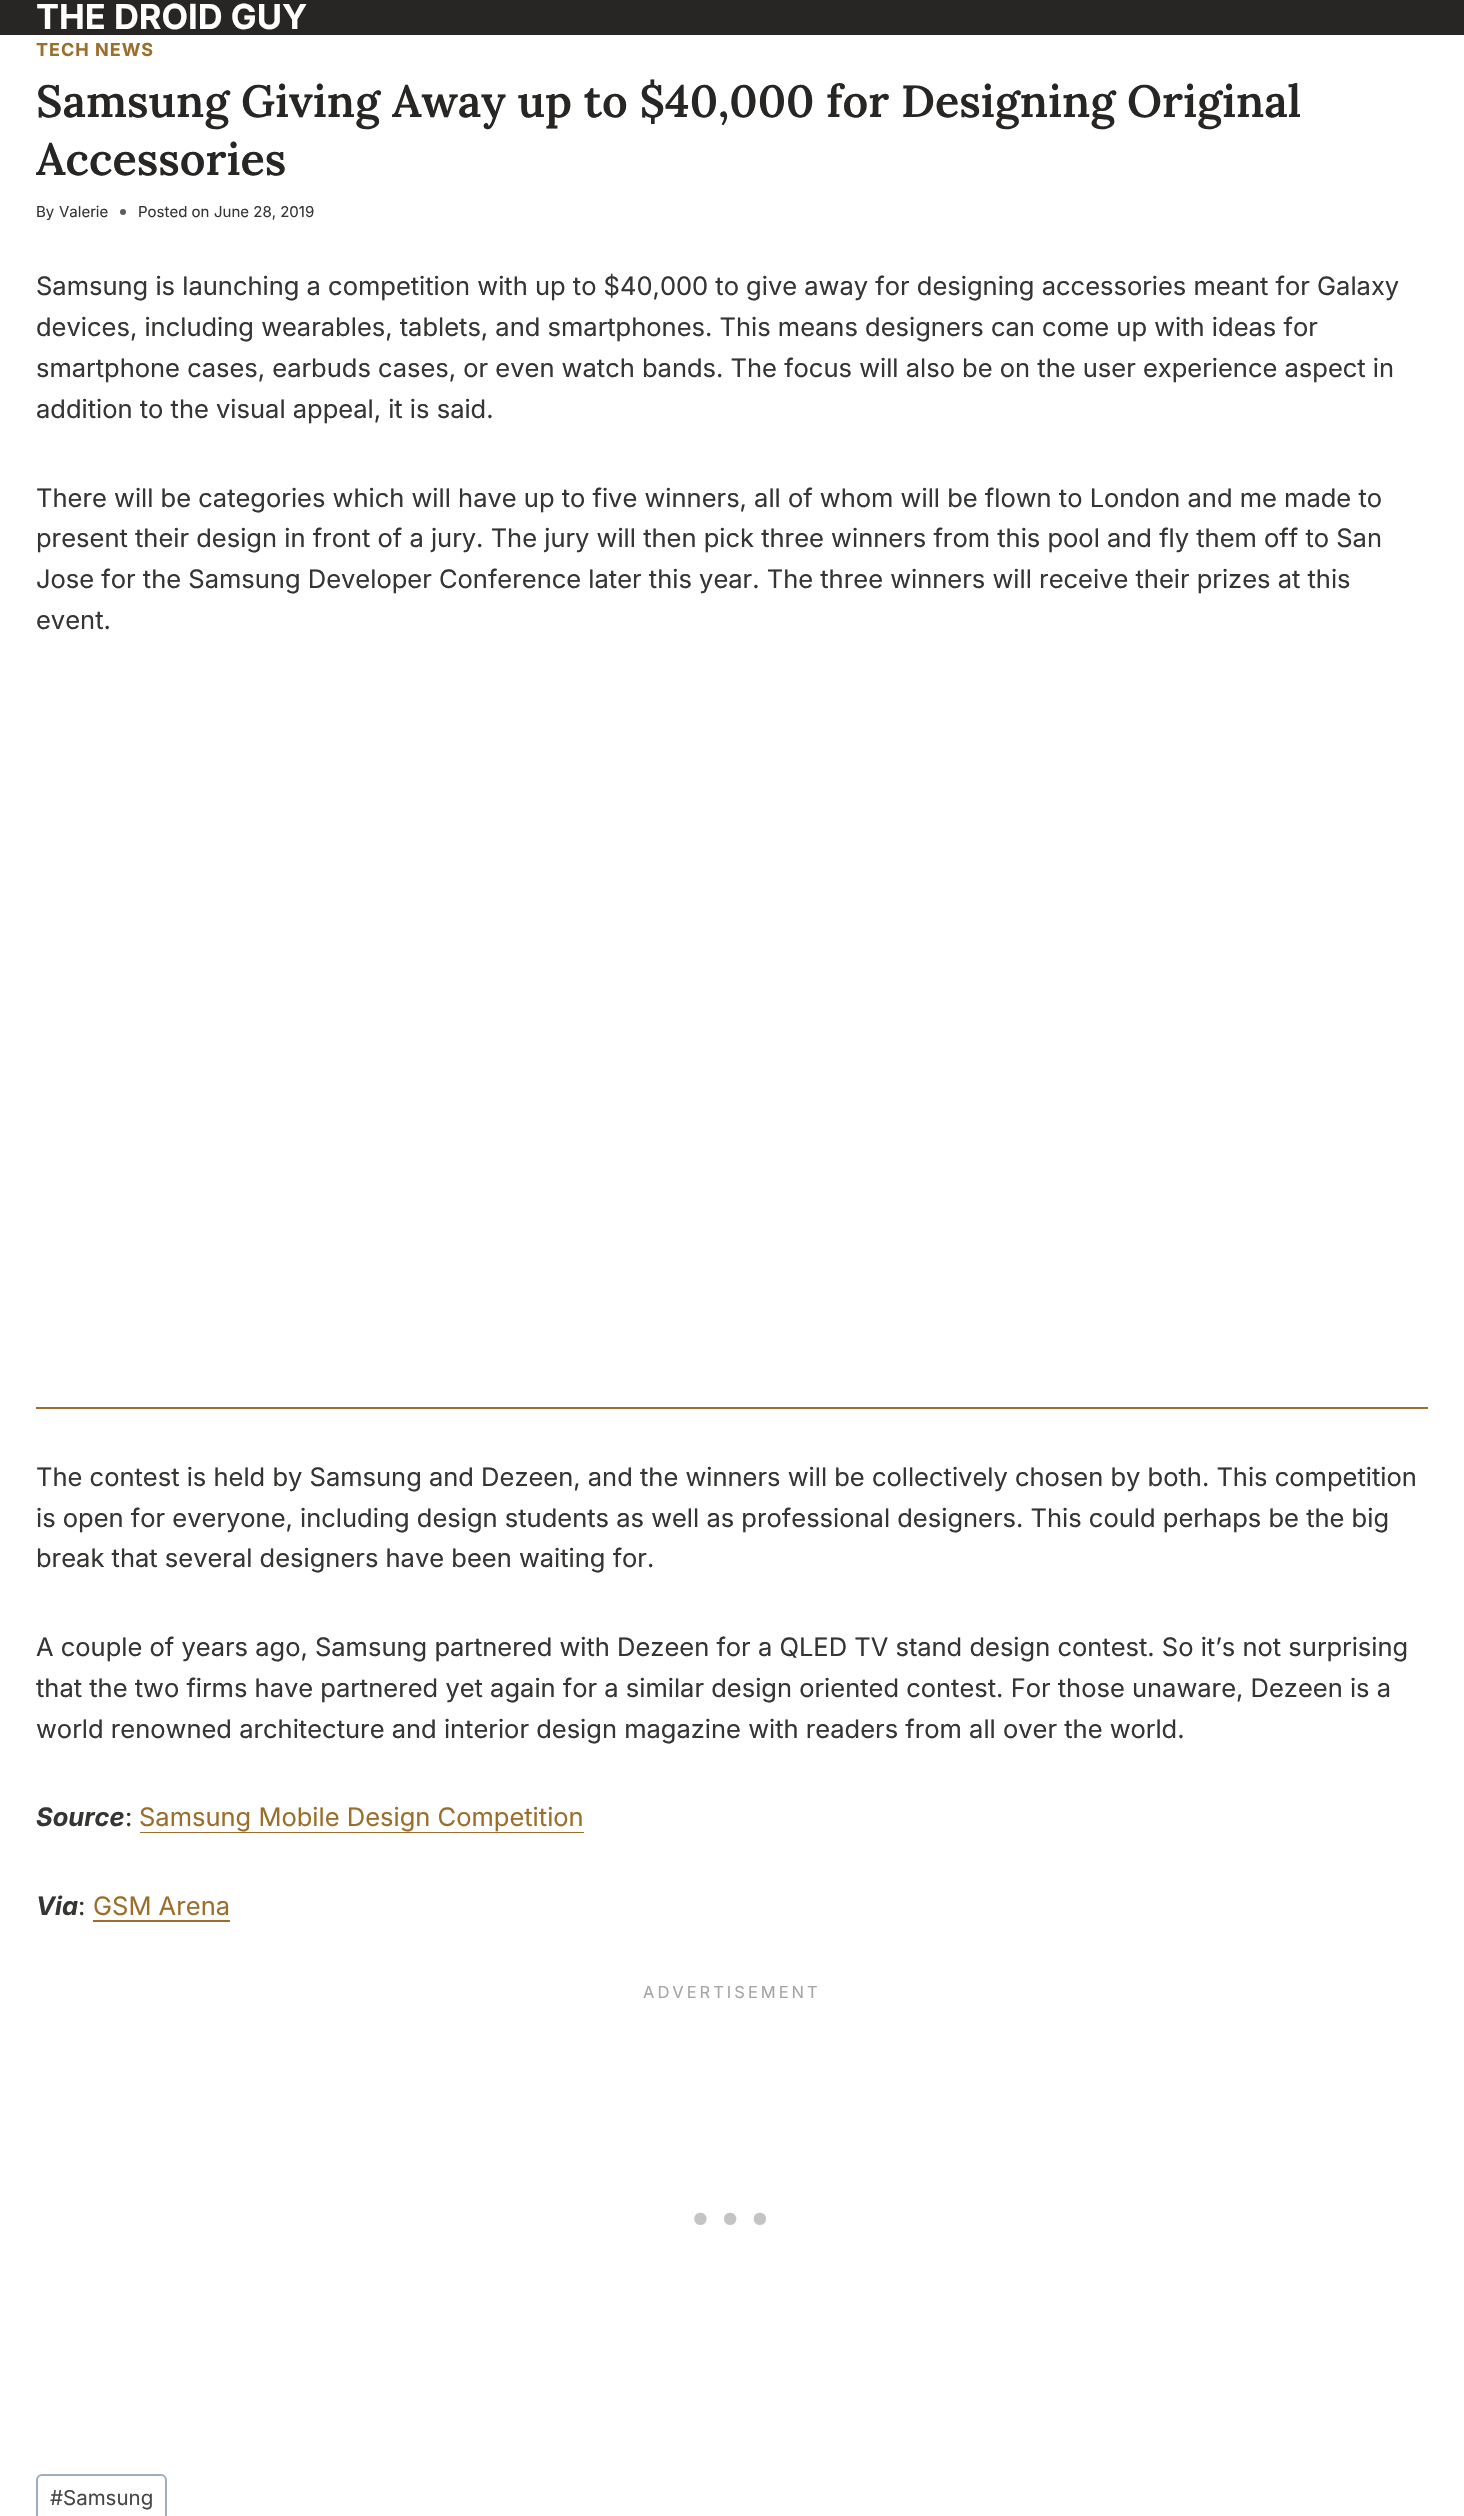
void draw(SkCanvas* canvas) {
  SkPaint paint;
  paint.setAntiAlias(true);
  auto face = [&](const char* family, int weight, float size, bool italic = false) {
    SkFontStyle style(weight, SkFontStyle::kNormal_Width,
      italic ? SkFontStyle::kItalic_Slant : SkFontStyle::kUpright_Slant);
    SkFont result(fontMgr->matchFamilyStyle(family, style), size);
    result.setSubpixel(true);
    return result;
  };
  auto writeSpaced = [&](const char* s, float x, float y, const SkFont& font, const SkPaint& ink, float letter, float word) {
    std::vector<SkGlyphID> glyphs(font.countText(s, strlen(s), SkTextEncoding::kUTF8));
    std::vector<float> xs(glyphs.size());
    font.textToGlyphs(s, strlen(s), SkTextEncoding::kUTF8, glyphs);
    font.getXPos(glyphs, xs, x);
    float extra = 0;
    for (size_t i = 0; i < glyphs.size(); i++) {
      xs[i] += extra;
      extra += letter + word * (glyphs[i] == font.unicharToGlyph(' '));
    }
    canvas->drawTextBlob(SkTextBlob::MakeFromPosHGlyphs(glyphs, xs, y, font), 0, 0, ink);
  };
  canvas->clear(0xffffffff);
  paint.setColor(0xff272624);
  canvas->drawRect(SkRect::MakeXYWH(0, 0, 1464, 35), paint);
  paint.setColor(0xff5d5d5d);
  canvas->drawCircle(123, 212, 3, paint);
  {
    const struct { float x, y, w, h; SkColor color; } items[] = {
      {36, 1407, 1392, 2, 0xff9b6e2b},
      {140, 1832, 444, 1, 0xff9b6e2b},
      {93, 1920, 137, 2, 0xff9b6e2b},
    };
    for (auto [x, y, w, h, color] : items) {
      paint.setColor(color);
      canvas->drawRect(SkRect::MakeXYWH(x, y, w, h), paint);
    }
  }
  paint.setStroke(true);
  paint.setStrokeWidth(2);
  paint.setColor(0xffa0aec0);
  canvas->drawRoundRect(SkRect::MakeXYWH(37, 2475, 129, 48), 5, 5, paint);
  auto f0 = face("Inter", 700, 34.5f);
  paint.setStroke(false);
  paint.setColor(0xffffffff);
  canvas->drawString("THE DROID GUY", 36, 29, f0, paint);
  auto f1 = face("Inter", 700, 18);
  paint.setColor(0xff9b6e2b);
  writeSpaced("TECH NEWS", 36, 56, f1, paint, 1, 0);
  auto f2 = face("Lora", 600, 45);
  paint.setColor(0xff272624);
  canvas->drawString("Samsung Giving Away up to $40,000 for Designing Original", 36, 117, f2, paint);
  canvas->drawString("Accessories", 36, 175, f2, paint);
  auto f3 = face("Inter", 400, 15);
  paint.setColor(0xff353534);
  {
    const struct { const char* s; float x, y; } items[] = {
      {"By", 36, 217},
      {"Valerie", 59, 217},
      {"Posted on", 138, 217},
      {"June 28, 2019", 214, 217},
    };
    for (auto [s, x, y] : items) {
      canvas->drawString(s, x, y, f3, paint);
    }
  }
  auto f4 = face("Inter", 400, 25.5f);
  {
    const struct { const char* s; float x, y; } items[] = {
      {"Samsung is launching a competition with up to $40,000 to give away for designing accessories meant for Galaxy", 36, 295},
      {"devices, including wearables, tablets, and smartphones. This means designers can come up with ideas for", 36, 336},
      {"smartphone cases, earbuds cases, or even watch bands. The focus will also be on the user experience aspect in", 36, 377},
      {"addition to the visual appeal, it is said.", 36, 418},
      {"There will be categories which will have up to five winners, all of whom will be flown to London and me made to", 36, 507},
      {"present their design in front of a jury. The jury will then pick three winners from this pool and fly them off to San", 36, 547},
      {"Jose for the Samsung Developer Conference later this year. The three winners will receive their prizes at this", 36, 588},
      {"event.", 36, 629},
      {"The contest is held by Samsung and Dezeen, and the winners will be collectively chosen by both. This competition", 36, 1486},
      {"is open for everyone, including design students as well as professional designers. This could perhaps be the big", 36, 1527},
      {"break that several designers have been waiting for.", 36, 1567},
      {"A couple of years ago, Samsung partnered with Dezeen for a QLED TV stand design contest. So it’s not surprising", 36, 1656},
      {"that the two firms have partnered yet again for a similar design oriented contest. For those unaware, Dezeen is a", 36, 1697},
      {"world renowned architecture and interior design magazine with readers from all over the world.", 36, 1738},
    };
    for (auto [s, x, y] : items) {
      canvas->drawString(s, x, y, f4, paint);
    }
  }
  auto f5 = face("Inter", 700, 25.5f, true);
  canvas->drawString("Source", 36, 1826, f5, paint);
  canvas->drawString(":", 125, 1826, f4, paint);
  paint.setColor(0xff9b6e2b);
  canvas->drawString("Samsung Mobile Design Competition", 139, 1826, f4, paint);
  paint.setColor(0xff353534);
  canvas->drawString("Via", 36, 1915, f5, paint);
  canvas->drawString(":", 78, 1915, f4, paint);
  paint.setColor(0xff9b6e2b);
  canvas->drawString("GSM Arena", 93, 1915, f4, paint);
  auto f6 = face("Inter", 400, 16.5f);
  paint.setColor(0xffa5a5a5);
  writeSpaced("ADVERTISEMENT", 643, 1998, f6, paint, 3, 0);
  auto f7 = face("Inter", 400, 93);
  paint.setColor(0xffc4c4c4);
  writeSpaced("···", 687, 2251, f7, paint, 3, 0);
  auto f8 = face("Inter", 400, 20.5f);
  paint.setColor(0xff484745);
  canvas->drawString("#Samsung", 50, 2505, f8, paint);
}
